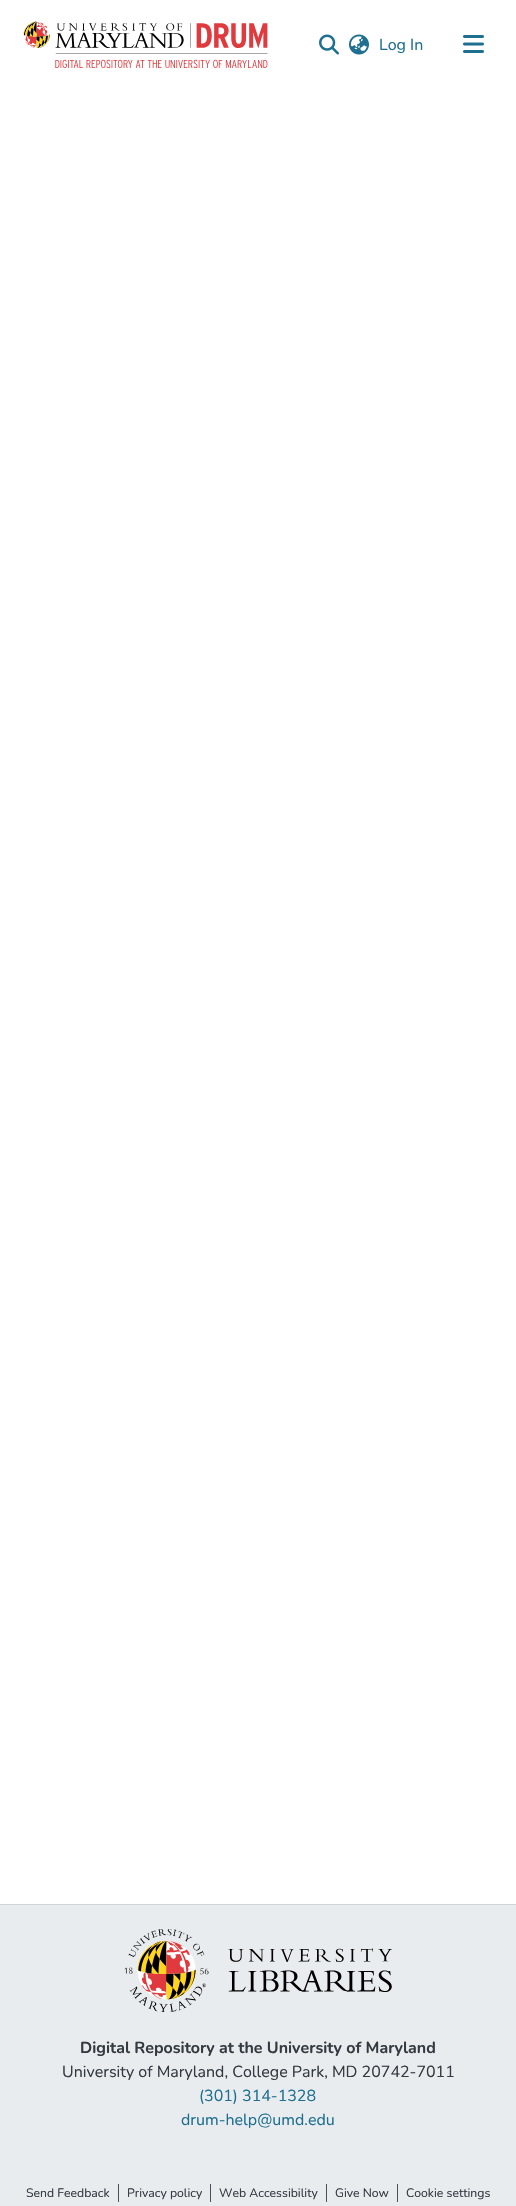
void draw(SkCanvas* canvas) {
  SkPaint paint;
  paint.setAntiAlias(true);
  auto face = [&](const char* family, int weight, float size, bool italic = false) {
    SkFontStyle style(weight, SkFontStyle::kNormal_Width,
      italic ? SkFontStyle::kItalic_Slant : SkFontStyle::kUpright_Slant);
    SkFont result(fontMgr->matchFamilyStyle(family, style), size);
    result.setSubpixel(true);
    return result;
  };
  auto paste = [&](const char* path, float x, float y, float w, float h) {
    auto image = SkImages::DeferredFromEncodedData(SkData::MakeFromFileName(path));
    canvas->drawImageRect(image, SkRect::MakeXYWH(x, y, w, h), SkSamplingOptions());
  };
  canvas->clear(0xffffffff);
  paste("img/1.png", 23, 21, 245, 47);
  paste("img/2.png", 319, 34, 20, 21);
  paste("img/3.png", 349, 34, 20, 21);
  paste("img/4.png", 463, 35, 21, 18);
  paint.setColor(0xffe9ecef);
  canvas->drawRect(SkRect::MakeXYWH(0, 1905, 516, 301), paint);
  paint.setColor(0xffced4da);
  canvas->drawRect(SkRect::MakeXYWH(0, 1904, 516, 1), paint);
  paste("img/5.png", 124, 1929, 268, 83);
  {
    const struct { float x, y, w, h; SkColor color; } items[] = {
      {118, 2184, 1, 18, 0xff495057},
      {210, 2184, 1, 18, 0xff495057},
      {326, 2184, 1, 18, 0xff495057},
      {397, 2184, 1, 18, 0xff495057},
    };
    for (auto [x, y, w, h, color] : items) {
      paint.setColor(color);
      canvas->drawRect(SkRect::MakeXYWH(x, y, w, h), paint);
    }
  }
  auto f0 = face("Nunito", 400, 16);
  paint.setColor(0xff1e6f90);
  canvas->drawString("Log In", 379, 50, f0, paint);
  auto f1 = face("Nunito", 700, 16);
  paint.setColor(0xff343a40);
  canvas->drawString("Digital Repository at the University of Maryland", 80, 2053, f1, paint);
  canvas->drawString("University of Maryland, College Park, MD 20742-7011", 62, 2077, f0, paint);
  paint.setColor(0xff1e6f90);
  canvas->drawString("(301) 314-1328", 199, 2101, f0, paint);
  canvas->drawString("drum-help@umd.edu", 181, 2125, f0, paint);
  auto f2 = face("Nunito", 400, 12.25f);
  paint.setColor(0xff343a40);
  {
    const struct { const char* s; float x, y; } items[] = {
      {"Send Feedback", 26, 2197},
      {"Privacy policy", 127, 2197},
      {"Web Accessibility", 219, 2197},
      {"Give Now", 335, 2197},
      {"Cookie settings", 406, 2197},
    };
    for (auto [s, x, y] : items) {
      canvas->drawString(s, x, y, f2, paint);
    }
  }
}
